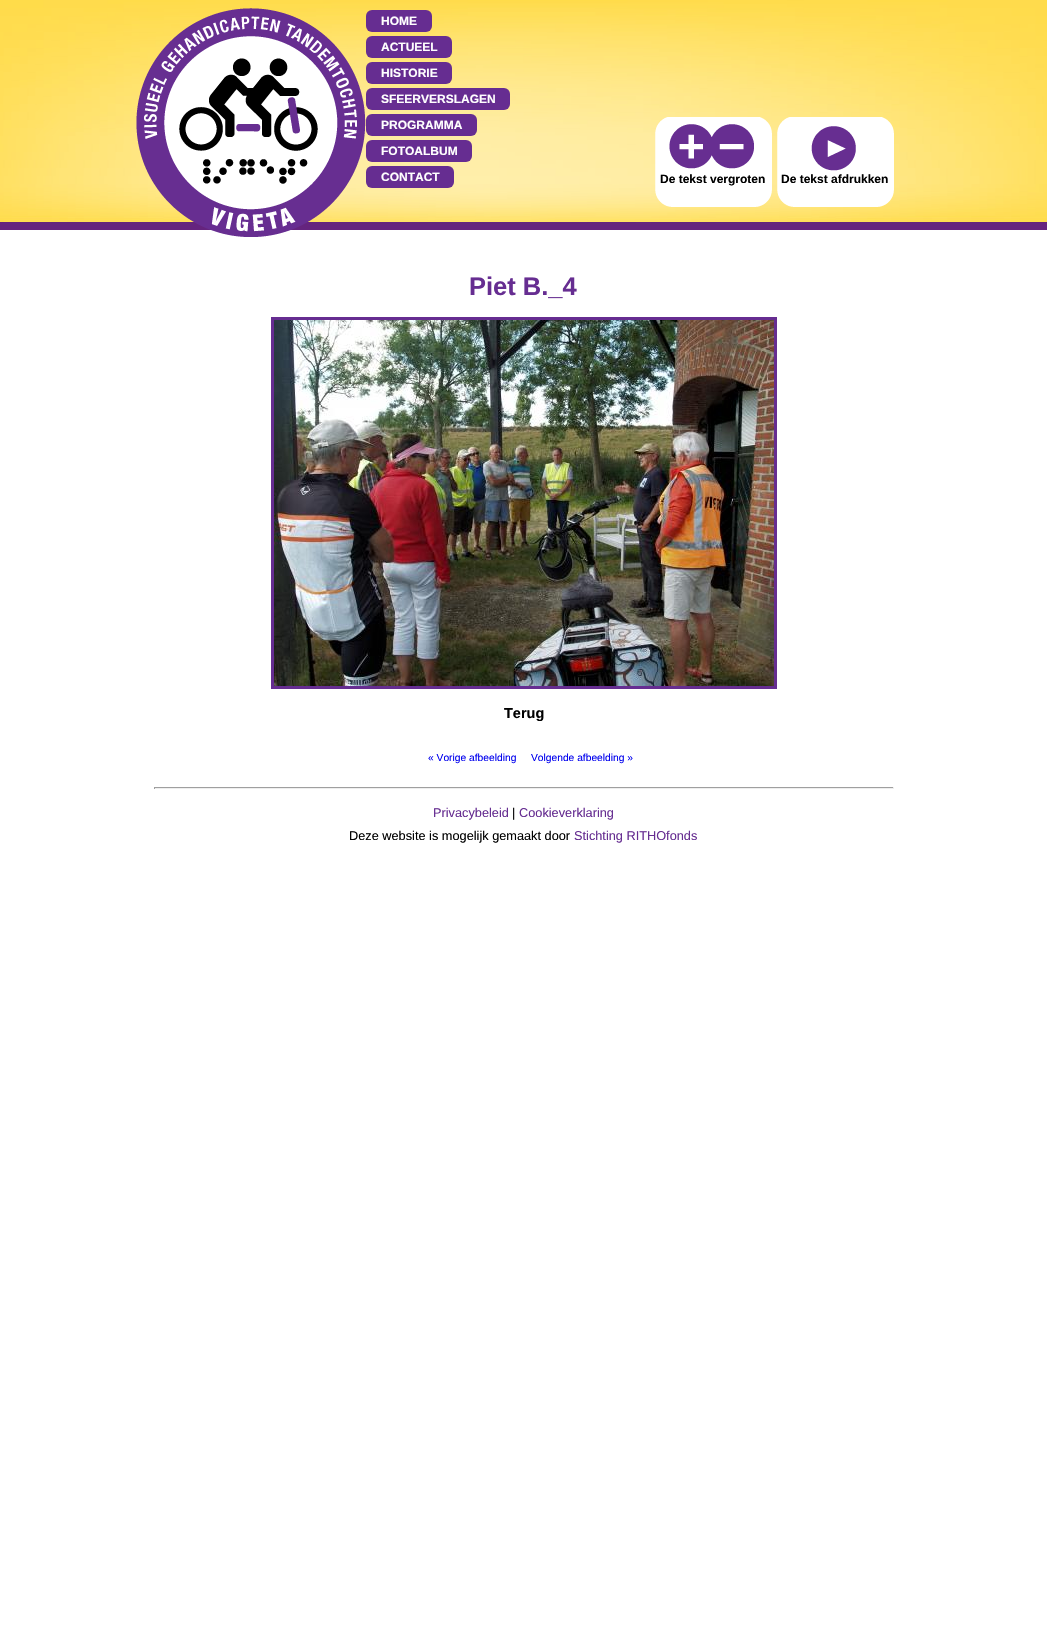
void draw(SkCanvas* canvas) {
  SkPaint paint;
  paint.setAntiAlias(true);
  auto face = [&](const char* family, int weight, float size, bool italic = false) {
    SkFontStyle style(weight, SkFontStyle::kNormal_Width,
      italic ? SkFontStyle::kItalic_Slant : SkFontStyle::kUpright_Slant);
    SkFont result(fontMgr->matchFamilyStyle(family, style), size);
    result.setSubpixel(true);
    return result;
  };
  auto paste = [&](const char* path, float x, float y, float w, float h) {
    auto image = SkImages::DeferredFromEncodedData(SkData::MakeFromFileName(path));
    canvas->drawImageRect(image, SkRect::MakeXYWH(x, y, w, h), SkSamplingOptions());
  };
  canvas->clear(0xffffffff);
  paste("img/1.png", 0, 0, 1047, 230);
  paste("img/2.png", 136, 8, 230, 229);
  paint.setColor(0xff662d91);
  canvas->drawRoundRect(SkRect::MakeXYWH(366, 10, 66, 22), 6, 6, paint);
  canvas->drawRoundRect(SkRect::MakeXYWH(366, 36, 86, 22), 6, 6, paint);
  canvas->drawRoundRect(SkRect::MakeXYWH(366, 62, 86, 22), 6, 6, paint);
  canvas->drawRoundRect(SkRect::MakeXYWH(366, 88, 144, 22), 6, 6, paint);
  canvas->drawRoundRect(SkRect::MakeXYWH(366, 114, 111, 22), 6, 6, paint);
  canvas->drawRoundRect(SkRect::MakeXYWH(366, 140, 106, 22), 6, 6, paint);
  canvas->drawRoundRect(SkRect::MakeXYWH(366, 166, 88, 22), 6, 6, paint);
  paste("img/3.png", 655, 117, 117, 90);
  paste("img/4.png", 669, 124, 42, 45);
  paste("img/5.png", 711, 124, 43, 45);
  paste("img/6.png", 777, 117, 117, 90);
  paste("img/7.png", 811, 126, 45, 45);
  paint.setStroke(true);
  paint.setStrokeWidth(3);
  canvas->drawRect(SkRect::MakeXYWH(272.5f, 318.5f, 503, 369), paint);
  paste("img/8.png", 274, 320, 500, 366);
  paint.setStroke(false);
  {
    const struct { float x, y, w, h; SkColor color; } items[] = {
      {154, 787, 740, 1, 0xff9f9f9f},
      {893, 787, 1, 2, 0xffeeeeee},
      {154, 788, 740, 1, 0xffeeeeee},
      {154, 787, 1, 2, 0xff9f9f9f},
    };
    for (auto [x, y, w, h, color] : items) {
      paint.setColor(color);
      canvas->drawRect(SkRect::MakeXYWH(x, y, w, h), paint);
    }
  }
  auto f0 = face("Liberation Sans", 700, 12);
  paint.setColor(0xffffffff);
  {
    const struct { const char* s; float x, y; } items[] = {
      {"HOME", 381, 25},
      {"ACTUEEL", 381, 51},
      {"HISTORIE", 381, 77},
      {"SFEERVERSLAGEN", 381, 103},
      {"PROGRAMMA", 381, 129},
      {"FOTOALBUM", 381, 155},
      {"CONTACT", 381, 181},
    };
    for (auto [s, x, y] : items) {
      canvas->drawString(s, x, y, f0, paint);
    }
  }
  paint.setColor(0xff000000);
  canvas->drawString("De tekst vergroten", 660, 183, f0, paint);
  canvas->drawString("De tekst afdrukken", 781, 183, f0, paint);
  auto f1 = face("Liberation Sans", 700, 25.5f);
  paint.setColor(0xff662d91);
  canvas->drawString("Piet B._4", 469, 295, f1, paint);
  auto f2 = face("Liberation Sans", 700, 14.5f);
  paint.setColor(0xff000000);
  canvas->drawString("Terug", 504, 718, f2, paint);
  auto f3 = face("Liberation Sans", 400, 10.25f);
  paint.setColor(0xff0000ee);
  canvas->drawString("« Vorige afbeelding", 428, 761, f3, paint);
  canvas->drawString("Volgende afbeelding »", 531, 761, f3, paint);
  auto f4 = face("Liberation Sans", 400, 12.75f);
  paint.setColor(0xff662d91);
  canvas->drawString("Privacybeleid", 433, 817, f4, paint);
  paint.setColor(0xff000000);
  canvas->drawString("|", 512, 817, f4, paint);
  paint.setColor(0xff662d91);
  canvas->drawString("Cookieverklaring", 519, 817, f4, paint);
  paint.setColor(0xff000000);
  canvas->drawString("Deze website is mogelijk gemaakt door", 349, 840, f4, paint);
  paint.setColor(0xff662d91);
  canvas->drawString("Stichting RITHOfonds", 574, 840, f4, paint);
}
